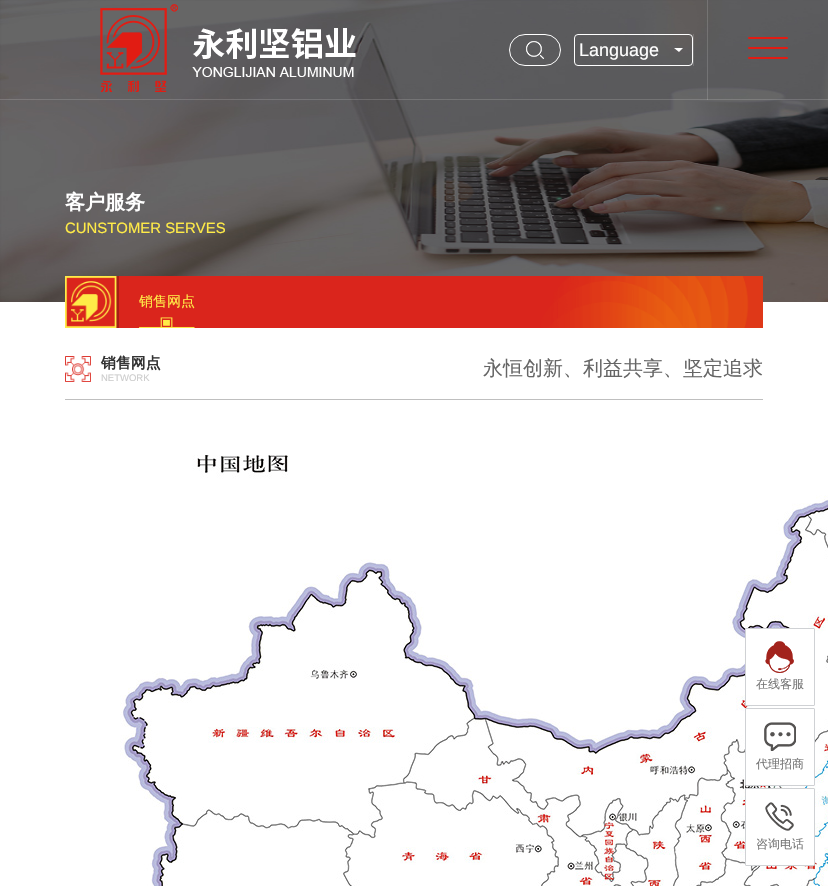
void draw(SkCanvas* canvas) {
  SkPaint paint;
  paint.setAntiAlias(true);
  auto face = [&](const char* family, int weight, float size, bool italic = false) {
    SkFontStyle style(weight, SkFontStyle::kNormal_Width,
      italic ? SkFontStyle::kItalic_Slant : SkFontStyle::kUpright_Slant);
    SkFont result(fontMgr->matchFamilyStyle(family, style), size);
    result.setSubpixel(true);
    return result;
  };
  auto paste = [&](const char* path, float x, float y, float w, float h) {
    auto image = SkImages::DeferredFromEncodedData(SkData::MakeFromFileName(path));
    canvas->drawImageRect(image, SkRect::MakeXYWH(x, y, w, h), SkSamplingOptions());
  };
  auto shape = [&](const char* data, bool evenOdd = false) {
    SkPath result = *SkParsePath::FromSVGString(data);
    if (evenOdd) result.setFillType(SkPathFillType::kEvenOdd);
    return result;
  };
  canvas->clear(0xffffffff);
  paste("img/3.png", 0, 0, 828, 302);
  paste("img/1.png", 100, 4, 256, 88);
  {
    const struct { float x, y, w, h; SkColor color; } items[] = {
      {0, 99, 828, 1, 0x26ffffff},
      {707, 0, 1, 100, 0x26ffffff},
      {693, 34, 1, 32, 0x26ffffff},
    };
    for (auto [x, y, w, h, color] : items) {
      paint.setColor(color);
      canvas->drawRect(SkRect::MakeXYWH(x, y, w, h), paint);
    }
  }
  paint.setStroke(true);
  paint.setStrokeWidth(1);
  paint.setColor(0xffffffff);
  canvas->drawRoundRect(SkRect::MakeXYWH(509.5f, 34.5f, 51, 31), 15.5f, 15.5f, paint);
  paste("img/2.png", 526, 41, 18, 18);
  canvas->drawRoundRect(SkRect::MakeXYWH(574.5f, 34.5f, 118, 31), 3.5f, 3.5f, paint);
  paint.setStroke(false);
  canvas->drawPath(shape("M674 48H683L679 52Z"), paint);
  paint.setColor(0xffe11c13);
  canvas->drawRoundRect(SkRect::MakeXYWH(748, 47, 40, 2), 1, 1, paint);
  canvas->drawRoundRect(SkRect::MakeXYWH(748, 37, 40, 2), 1, 1, paint);
  canvas->drawRoundRect(SkRect::MakeXYWH(748, 57, 40, 2), 1, 1, paint);
  paste("img/4.png", 66, 276, 697, 52);
  paste("img/5.png", 65, 276, 54, 52);
  paste("img/6.png", 139, 317, 56, 11);
  paint.setColor(0xffbfbfbf);
  canvas->drawRect(SkRect::MakeXYWH(65, 399, 698, 1), paint);
  paste("img/7.png", 65, 356, 26, 26);
  paste("img/8.png", 120, 455, 708, 431);
  paint.setColor(0xffffffff);
  canvas->drawRoundRect(SkRect::MakeXYWH(745.5f, 628.5f, 69, 77), 0.5f, 0.5f, paint);
  paint.setStroke(true);
  paint.setColor(0xffcfd1d4);
  canvas->drawRoundRect(SkRect::MakeXYWH(745.5f, 628.5f, 69, 77), 0.5f, 0.5f, paint);
  paste("img/9.png", 765, 641, 29, 32);
  paint.setStroke(false);
  paint.setColor(0xffffffff);
  canvas->drawRoundRect(SkRect::MakeXYWH(745.5f, 708.5f, 69, 77), 0.5f, 0.5f, paint);
  paint.setStroke(true);
  paint.setColor(0xffcfd1d4);
  canvas->drawRoundRect(SkRect::MakeXYWH(745.5f, 708.5f, 69, 77), 0.5f, 0.5f, paint);
  paste("img/10.png", 764, 722, 32, 29);
  paint.setStroke(false);
  paint.setColor(0xffffffff);
  canvas->drawRoundRect(SkRect::MakeXYWH(745.5f, 788.5f, 69, 77), 0.5f, 0.5f, paint);
  paint.setStroke(true);
  paint.setColor(0xffcfd1d4);
  canvas->drawRoundRect(SkRect::MakeXYWH(745.5f, 788.5f, 69, 77), 0.5f, 0.5f, paint);
  paste("img/11.png", 765, 802, 29, 29);
  auto f0 = face("Liberation Sans", 400, 18);
  paint.setStroke(false);
  paint.setColor(0xffffffff);
  canvas->drawString("Language", 579, 56, f0, paint);
  auto f1 = face("WenQuanYi Zen Hei", 700, 20);
  canvas->drawString("客户服务", 65, 209, f1, paint);
  auto f2 = face("Liberation Sans", 400, 14.9f);
  paint.setColor(0xffffeb47);
  canvas->drawString("CUNSTOMER SERVES", 65, 233, f2, paint);
  auto f3 = face("WenQuanYi Zen Hei", 500, 14);
  canvas->drawString("销售网点", 139, 306, f3, paint);
  auto f4 = face("WenQuanYi Zen Hei", 700, 14.9f);
  paint.setColor(0xff333333);
  canvas->drawString("销售网点", 101, 368, f4, paint);
  auto f5 = face("Liberation Sans", 400, 9.5f);
  paint.setColor(0xffcccccc);
  canvas->drawString("NETWORK", 101, 381, f5, paint);
  auto f6 = face("WenQuanYi Zen Hei", 500, 20);
  paint.setColor(0xff666666);
  canvas->drawString("永恒创新、利益共享、坚定追求", 483, 375, f6, paint);
  auto f7 = face("WenQuanYi Zen Hei", 500, 12);
  paint.setColor(0xff747474);
  {
    const struct { const char* s; float x, y; } items[] = {
      {"在线客服", 756, 688},
      {"代理招商", 756, 768},
      {"咨询电话", 756, 848},
    };
    for (auto [s, x, y] : items) {
      canvas->drawString(s, x, y, f7, paint);
    }
  }
}
